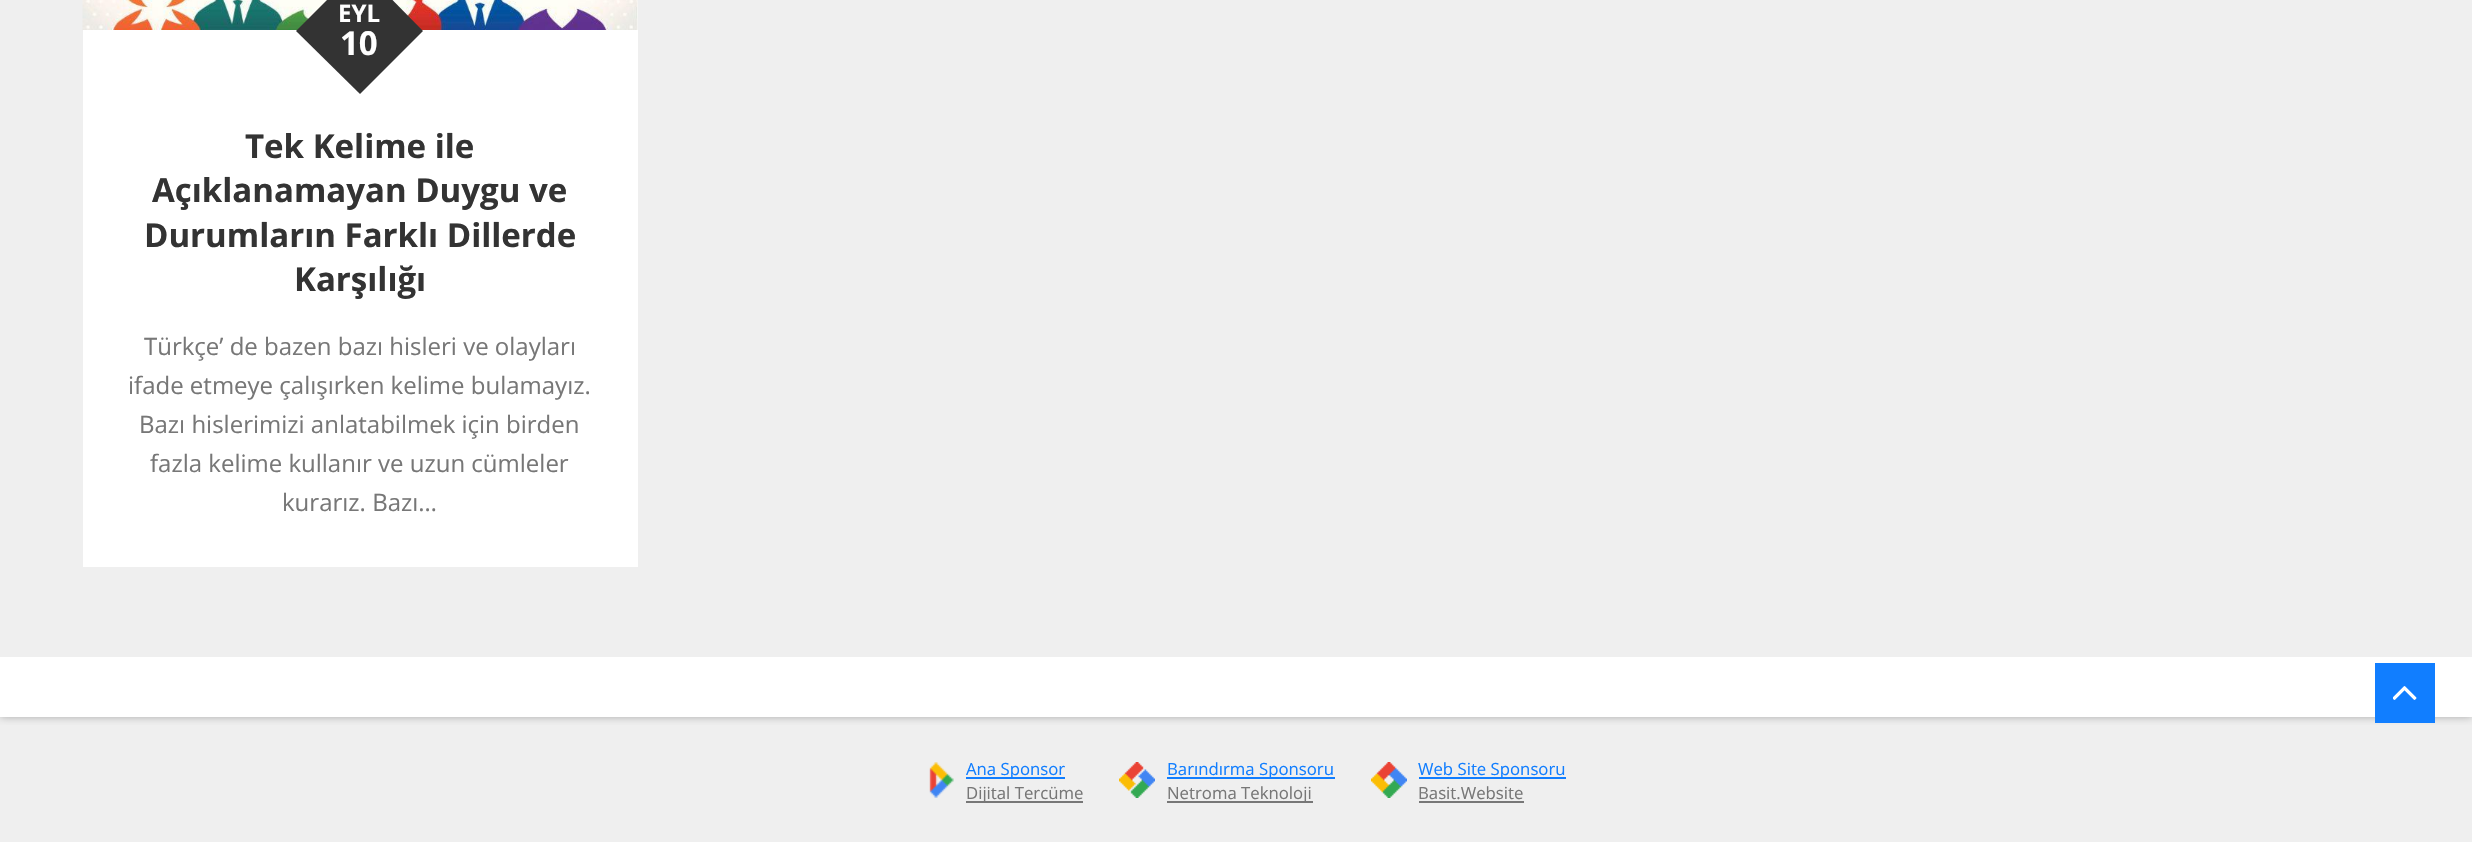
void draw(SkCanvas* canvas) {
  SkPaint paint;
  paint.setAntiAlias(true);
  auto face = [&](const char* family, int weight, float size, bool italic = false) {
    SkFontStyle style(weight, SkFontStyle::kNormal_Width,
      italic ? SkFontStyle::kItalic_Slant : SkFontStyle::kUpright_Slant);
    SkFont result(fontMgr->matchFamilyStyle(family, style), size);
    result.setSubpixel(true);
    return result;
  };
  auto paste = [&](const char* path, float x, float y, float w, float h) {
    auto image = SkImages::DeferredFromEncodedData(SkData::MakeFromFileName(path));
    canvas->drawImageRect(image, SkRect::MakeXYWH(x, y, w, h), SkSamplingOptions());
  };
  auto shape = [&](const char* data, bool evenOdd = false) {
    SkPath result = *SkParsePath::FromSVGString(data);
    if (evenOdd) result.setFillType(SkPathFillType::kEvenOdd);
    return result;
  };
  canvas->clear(0xffefefef);
  canvas->save();
  canvas->clipRect(SkRect::MakeXYWH(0, 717, 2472, 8));
  paint.setColor(0xffaaaaaa);
  paint.setMaskFilter(SkMaskFilter::MakeBlur(kNormal_SkBlurStyle, 4));
  canvas->drawRect(SkRect::MakeXYWH(0, -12, 2472, 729), paint);
  paint.setMaskFilter(nullptr);
  canvas->restore();
  paste("img/1.png", 82, 0, 556, 30);
  paint.setColor(0xffffffff);
  canvas->drawRect(SkRect::MakeXYWH(83, 30, 555, 537), paint);
  paint.setColor(0xff333333);
  canvas->drawPath(shape("M296 31L360-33L423 31L360 94Z"), paint);
  paint.setColor(0xffffffff);
  canvas->drawRect(SkRect::MakeXYWH(0, 657, 2472, 60), paint);
  paint.setColor(0xff117eff);
  canvas->drawRect(SkRect::MakeXYWH(2375, 663, 60, 60), paint);
  paste("img/2.png", 2393, 686, 24, 14);
  paste("img/3.png", 929, 762, 25, 36);
  canvas->drawRect(SkRect::MakeXYWH(966, 777, 99, 2), paint);
  paint.setColor(0xff777777);
  canvas->drawRect(SkRect::MakeXYWH(966, 801, 117, 2), paint);
  paste("img/4.png", 1119, 762, 36, 36);
  paint.setColor(0xff117eff);
  canvas->drawRect(SkRect::MakeXYWH(1167, 777, 168, 2), paint);
  paint.setColor(0xff777777);
  canvas->drawRect(SkRect::MakeXYWH(1167, 801, 146, 2), paint);
  paste("img/5.png", 1371, 762, 36, 36);
  paint.setColor(0xff117eff);
  canvas->drawRect(SkRect::MakeXYWH(1419, 777, 147, 2), paint);
  paint.setColor(0xff777777);
  canvas->drawRect(SkRect::MakeXYWH(1419, 801, 105, 2), paint);
  auto f0 = face("Open Sans", 700, 24);
  paint.setColor(0xffffffff);
  canvas->drawString("EYL", 338, 22, f0, paint);
  auto f1 = face("Open Sans", 700, 33);
  canvas->drawString("10", 340, 55, f1, paint);
  paint.setColor(0xff333333);
  {
    const struct { const char* s; float x, y; } items[] = {
      {"Tek Kelime ile", 245, 158},
      {"Açıklanamayan Duygu ve", 152, 202},
      {"Durumların Farklı Dillerde", 144, 247},
      {"Karşılığı", 294, 291},
    };
    for (auto [s, x, y] : items) {
      canvas->drawString(s, x, y, f1, paint);
    }
  }
  auto f2 = face("Open Sans", 400, 24);
  paint.setColor(0xff777777);
  {
    const struct { const char* s; float x, y; } items[] = {
      {"Türkçe’ de bazen bazı hisleri ve olayları", 144, 355},
      {"ifade etmeye çalışırken kelime bulamayız.", 128, 394},
      {"Bazı hislerimizi anlatabilmek için birden", 139, 433},
      {"fazla kelime kullanır ve uzun cümleler", 150, 472},
      {"kurarız. Bazı…", 282, 511},
    };
    for (auto [s, x, y] : items) {
      canvas->drawString(s, x, y, f2, paint);
    }
  }
  auto f3 = face("Open Sans", 400, 16.75f);
  paint.setColor(0xff117eff);
  canvas->drawString("Ana Sponsor", 966, 775, f3, paint);
  paint.setColor(0xff777777);
  canvas->drawString("Dijital Tercüme", 966, 799, f3, paint);
  paint.setColor(0xff117eff);
  canvas->drawString("Barındırma Sponsoru", 1167, 775, f3, paint);
  paint.setColor(0xff777777);
  canvas->drawString("Netroma Teknoloji", 1167, 799, f3, paint);
  paint.setColor(0xff117eff);
  canvas->drawString("Web Site Sponsoru", 1418, 775, f3, paint);
  paint.setColor(0xff777777);
  canvas->drawString("Basit.Website", 1418, 799, f3, paint);
}
